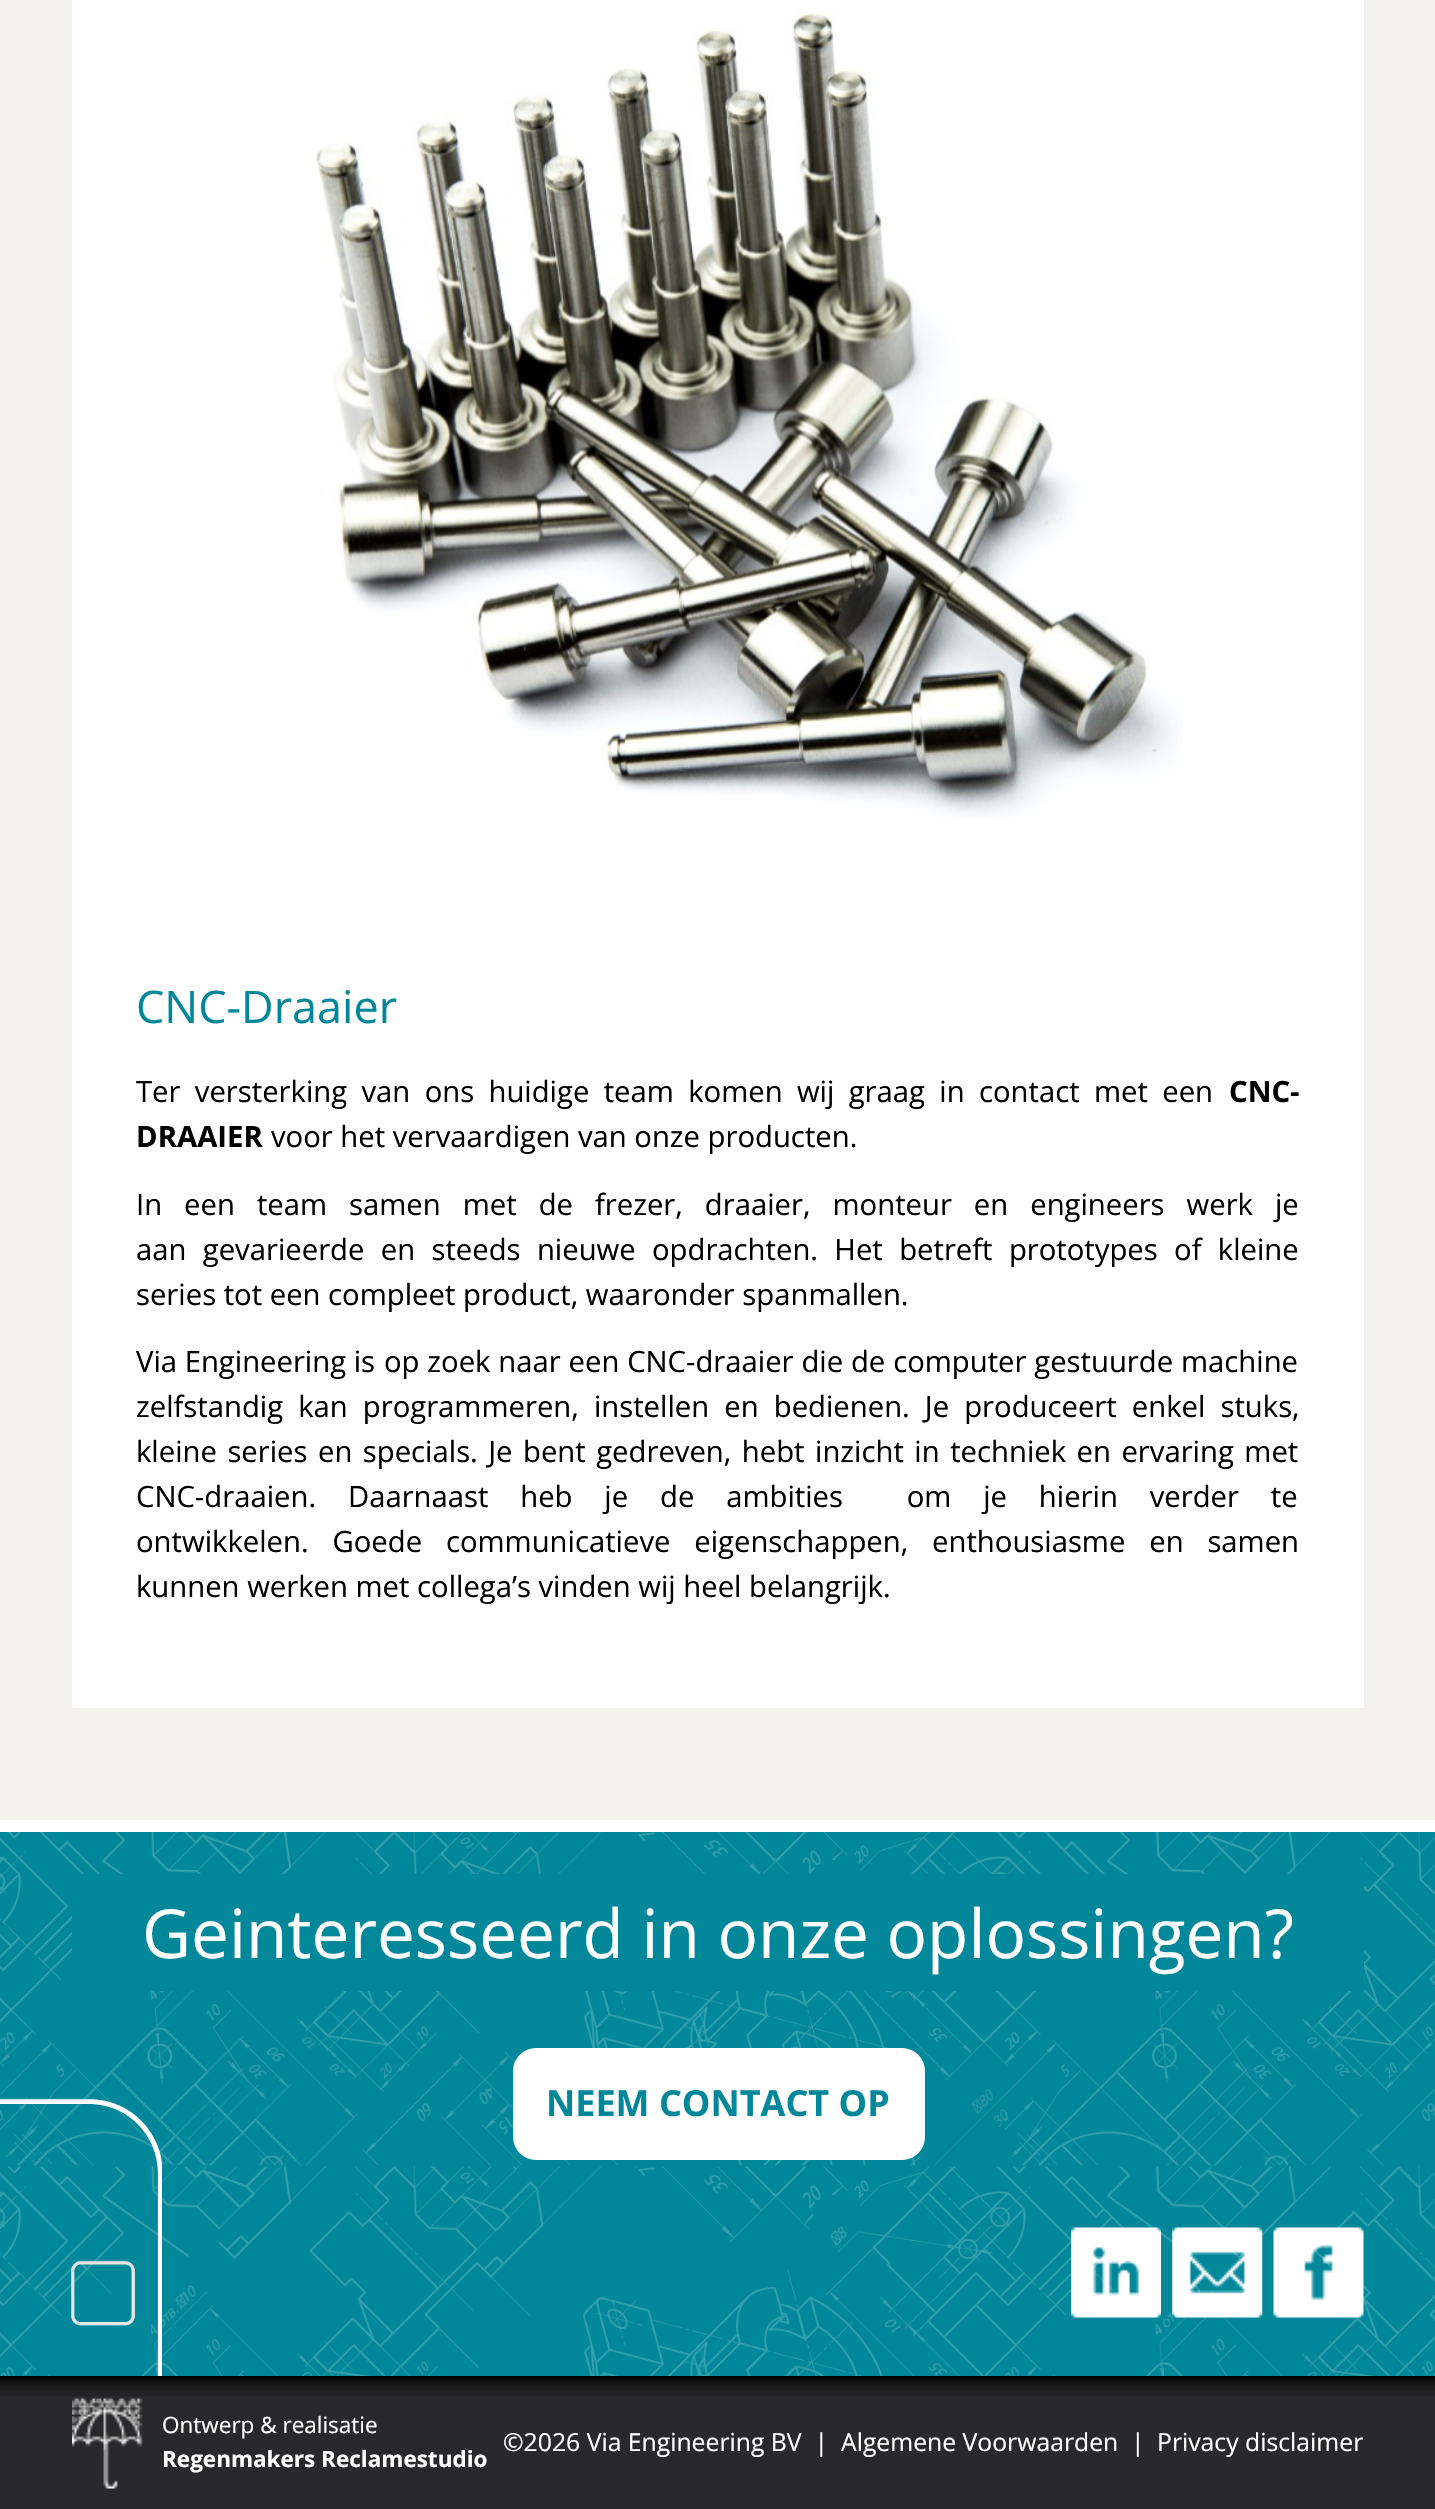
void draw(SkCanvas* canvas) {
  SkPaint paint;
  paint.setAntiAlias(true);
  auto face = [&](const char* family, int weight, float size, bool italic = false) {
    SkFontStyle style(weight, SkFontStyle::kNormal_Width,
      italic ? SkFontStyle::kItalic_Slant : SkFontStyle::kUpright_Slant);
    SkFont result(fontMgr->matchFamilyStyle(family, style), size);
    result.setSubpixel(true);
    return result;
  };
  auto writeSpaced = [&](const char* s, float x, float y, const SkFont& font, const SkPaint& ink, float letter, float word) {
    std::vector<SkGlyphID> glyphs(font.countText(s, strlen(s), SkTextEncoding::kUTF8));
    std::vector<float> xs(glyphs.size());
    font.textToGlyphs(s, strlen(s), SkTextEncoding::kUTF8, glyphs);
    font.getXPos(glyphs, xs, x);
    float extra = 0;
    for (size_t i = 0; i < glyphs.size(); i++) {
      xs[i] += extra;
      extra += letter + word * (glyphs[i] == font.unicharToGlyph(' '));
    }
    canvas->drawTextBlob(SkTextBlob::MakeFromPosHGlyphs(glyphs, xs, y, font), 0, 0, ink);
  };
  auto paste = [&](const char* path, float x, float y, float w, float h) {
    auto image = SkImages::DeferredFromEncodedData(SkData::MakeFromFileName(path));
    canvas->drawImageRect(image, SkRect::MakeXYWH(x, y, w, h), SkSamplingOptions());
  };
  canvas->clear(0xff29282a);
  paint.setColor(0xfff1f0ec);
  canvas->drawRect(SkRect::MakeXYWH(0, 0, 1435, 1820), paint);
  paint.setColor(0xffffffff);
  canvas->drawRect(SkRect::MakeXYWH(72, 0, 1292, 1708), paint);
  paste("img/1.png", 315, 9, 867, 809);
  paint.setColor(0xff00879a);
  canvas->drawRect(SkRect::MakeXYWH(0, 1832, 1435, 544), paint);
  paste("img/2.png", 0, 1832, 1435, 544);
  paint.setColor(0xffffffff);
  canvas->drawRect(SkRect::MakeXYWH(0, 1820, 1435, 12), paint);
  paint.setColor(0xff00879a);
  canvas->drawRect(SkRect::MakeXYWH(72, 1874, 1292, 117), paint);
  paste("img/3.png", 0, 2099, 162, 277);
  paint.setColor(0xffffffff);
  canvas->drawRoundRect(SkRect::MakeXYWH(513, 2048, 412, 112), 23, 23, paint);
  paste("img/4.png", 1071, 2227, 90, 91);
  paste("img/5.png", 1172, 2227, 91, 91);
  paste("img/6.png", 1273, 2227, 91, 91);
  paste("img/7.png", 0, 2376, 1435, 20);
  paste("img/8.png", 72, 2398, 71, 91);
  auto f0 = face("Open Sans", 400, 45);
  paint.setColor(0xff00879a);
  canvas->drawString("CNC-Draaier", 136, 1023, f0, paint);
  auto f1 = face("Open Sans", 400, 29.25f);
  paint.setColor(0xff000000);
  writeSpaced("Ter versterking van ons huidige team komen wij graag in contact met een", 136, 1102, f1, paint, 0, 6.75f);
  auto f2 = face("Open Sans", 700, 29.25f);
  canvas->drawString("CNC-", 1229, 1102, f2, paint);
  canvas->drawString("DRAAIER", 136, 1147, f2, paint);
  canvas->drawString("voor het vervaardigen van onze producten.", 271, 1147, f1, paint);
  writeSpaced("In een team samen met de frezer, draaier, monteur en engineers werk je", 136, 1215, f1, paint, 0, 14.4f);
  writeSpaced("aan gevarieerde en steeds nieuwe opdrachten. Het betreft prototypes of kleine", 136, 1260, f1, paint, 0, 8.75f);
  canvas->drawString("series tot een compleet product, waaronder spanmallen.", 136, 1305, f1, paint);
  canvas->drawString("Via Engineering is", 136, 1372, f1, paint);
  writeSpaced("op zoek naar een CNC-draaier die de computer gestuurde machine", 384, 1372, f1, paint, 0, 0.25f);
  writeSpaced("zelfstandig kan programmeren, instellen en bedienen. Je produceert enkel stuks,", 136, 1417, f1, paint, 0, 7.5f);
  writeSpaced("kleine series en specials. Je bent gedreven, hebt inzicht in techniek en ervaring met", 136, 1462, f1, paint, 0, 2.9f);
  writeSpaced("CNC-draaien. Daarnaast heb je de ambities  om je hierin verder te", 136, 1507, f1, paint, 0, 24.25f);
  writeSpaced("ontwikkelen. Goede communicatieve eigenschappen, enthousiasme en samen", 136, 1552, f1, paint, 0, 16.25f);
  canvas->drawString("kunnen werken met collega’s vinden wij heel belangrijk.", 136, 1597, f1, paint);
  auto f3 = face("Open Sans", 400, 67.5f);
  paint.setColor(0xffffffff);
  canvas->drawString("Geinteresseerd in onze oplossingen?", 142, 1958, f3, paint);
  auto f4 = face("Open Sans", 700, 36);
  paint.setColor(0xff00879a);
  canvas->drawString("NEEM CONTACT OP", 546, 2116, f4, paint);
  auto f5 = face("Open Sans", 400, 22.5f);
  paint.setColor(0xffffffff);
  canvas->drawString("Ontwerp & realisatie", 162, 2433, f5, paint);
  auto f6 = face("Open Sans", 700, 22.5f);
  canvas->drawString("Regenmakers Reclamestudio", 162, 2467, f6, paint);
  auto f7 = face("Open Sans", 400, 24.75f);
  {
    const struct { const char* s; float x, y; } items[] = {
      {"©2026 Via Engineering BV  |", 503, 2451},
      {"Algemene Voorwaarden", 841, 2451},
      {"|", 1131, 2451},
      {"Privacy disclaimer", 1157, 2451},
    };
    for (auto [s, x, y] : items) {
      canvas->drawString(s, x, y, f7, paint);
    }
  }
}
